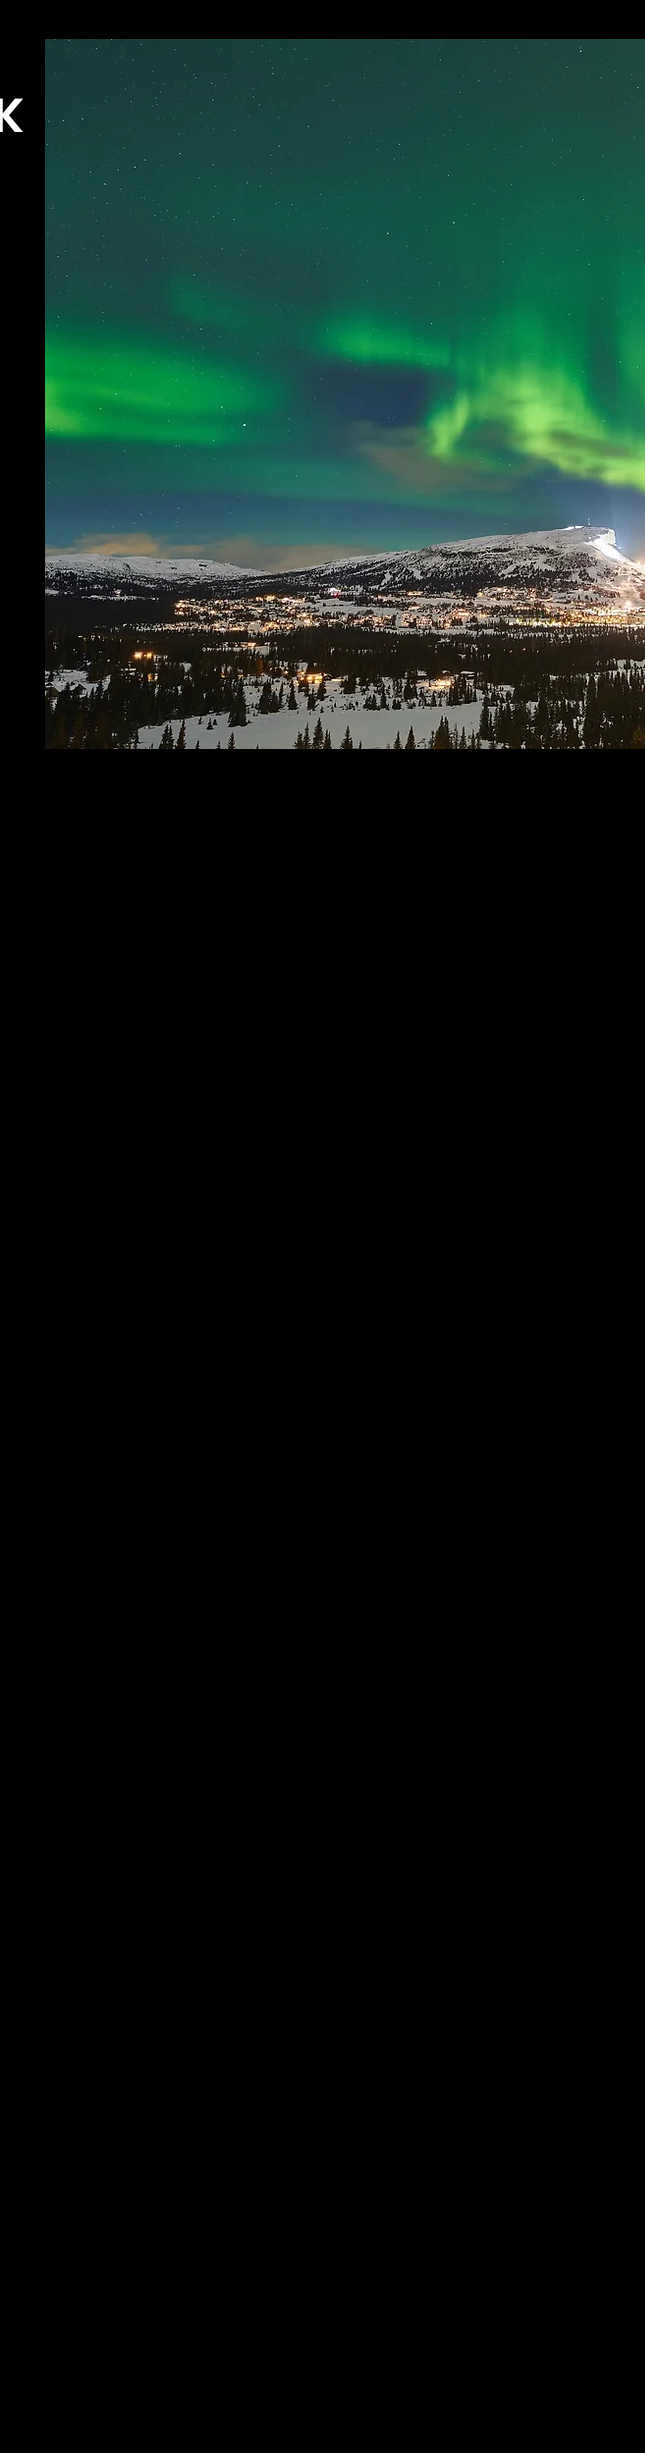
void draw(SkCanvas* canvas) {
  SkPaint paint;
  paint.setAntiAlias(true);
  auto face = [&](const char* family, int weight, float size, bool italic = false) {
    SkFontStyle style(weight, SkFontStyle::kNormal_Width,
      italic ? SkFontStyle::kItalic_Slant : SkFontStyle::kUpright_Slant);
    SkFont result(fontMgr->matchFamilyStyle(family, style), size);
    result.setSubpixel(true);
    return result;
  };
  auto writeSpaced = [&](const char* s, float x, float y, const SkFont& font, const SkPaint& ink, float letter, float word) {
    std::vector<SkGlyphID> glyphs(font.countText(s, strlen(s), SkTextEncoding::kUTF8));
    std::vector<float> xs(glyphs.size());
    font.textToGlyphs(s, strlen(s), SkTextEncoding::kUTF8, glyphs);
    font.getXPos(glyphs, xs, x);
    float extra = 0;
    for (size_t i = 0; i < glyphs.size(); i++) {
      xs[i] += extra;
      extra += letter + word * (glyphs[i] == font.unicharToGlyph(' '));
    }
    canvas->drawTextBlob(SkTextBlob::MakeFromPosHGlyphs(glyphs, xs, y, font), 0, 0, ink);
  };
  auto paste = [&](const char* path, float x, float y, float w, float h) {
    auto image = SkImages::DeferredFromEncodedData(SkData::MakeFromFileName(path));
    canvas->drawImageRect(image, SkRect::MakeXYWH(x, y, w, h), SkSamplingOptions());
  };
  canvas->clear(0xff000000);
  paste("img/1.png", 45, 39, 600, 710);
  auto f0 = face("Poppins", 600, 47);
  paint.setColor(0xffffffff);
  writeSpaced("K", -7, 132, f0, paint, 1, 0);
}
